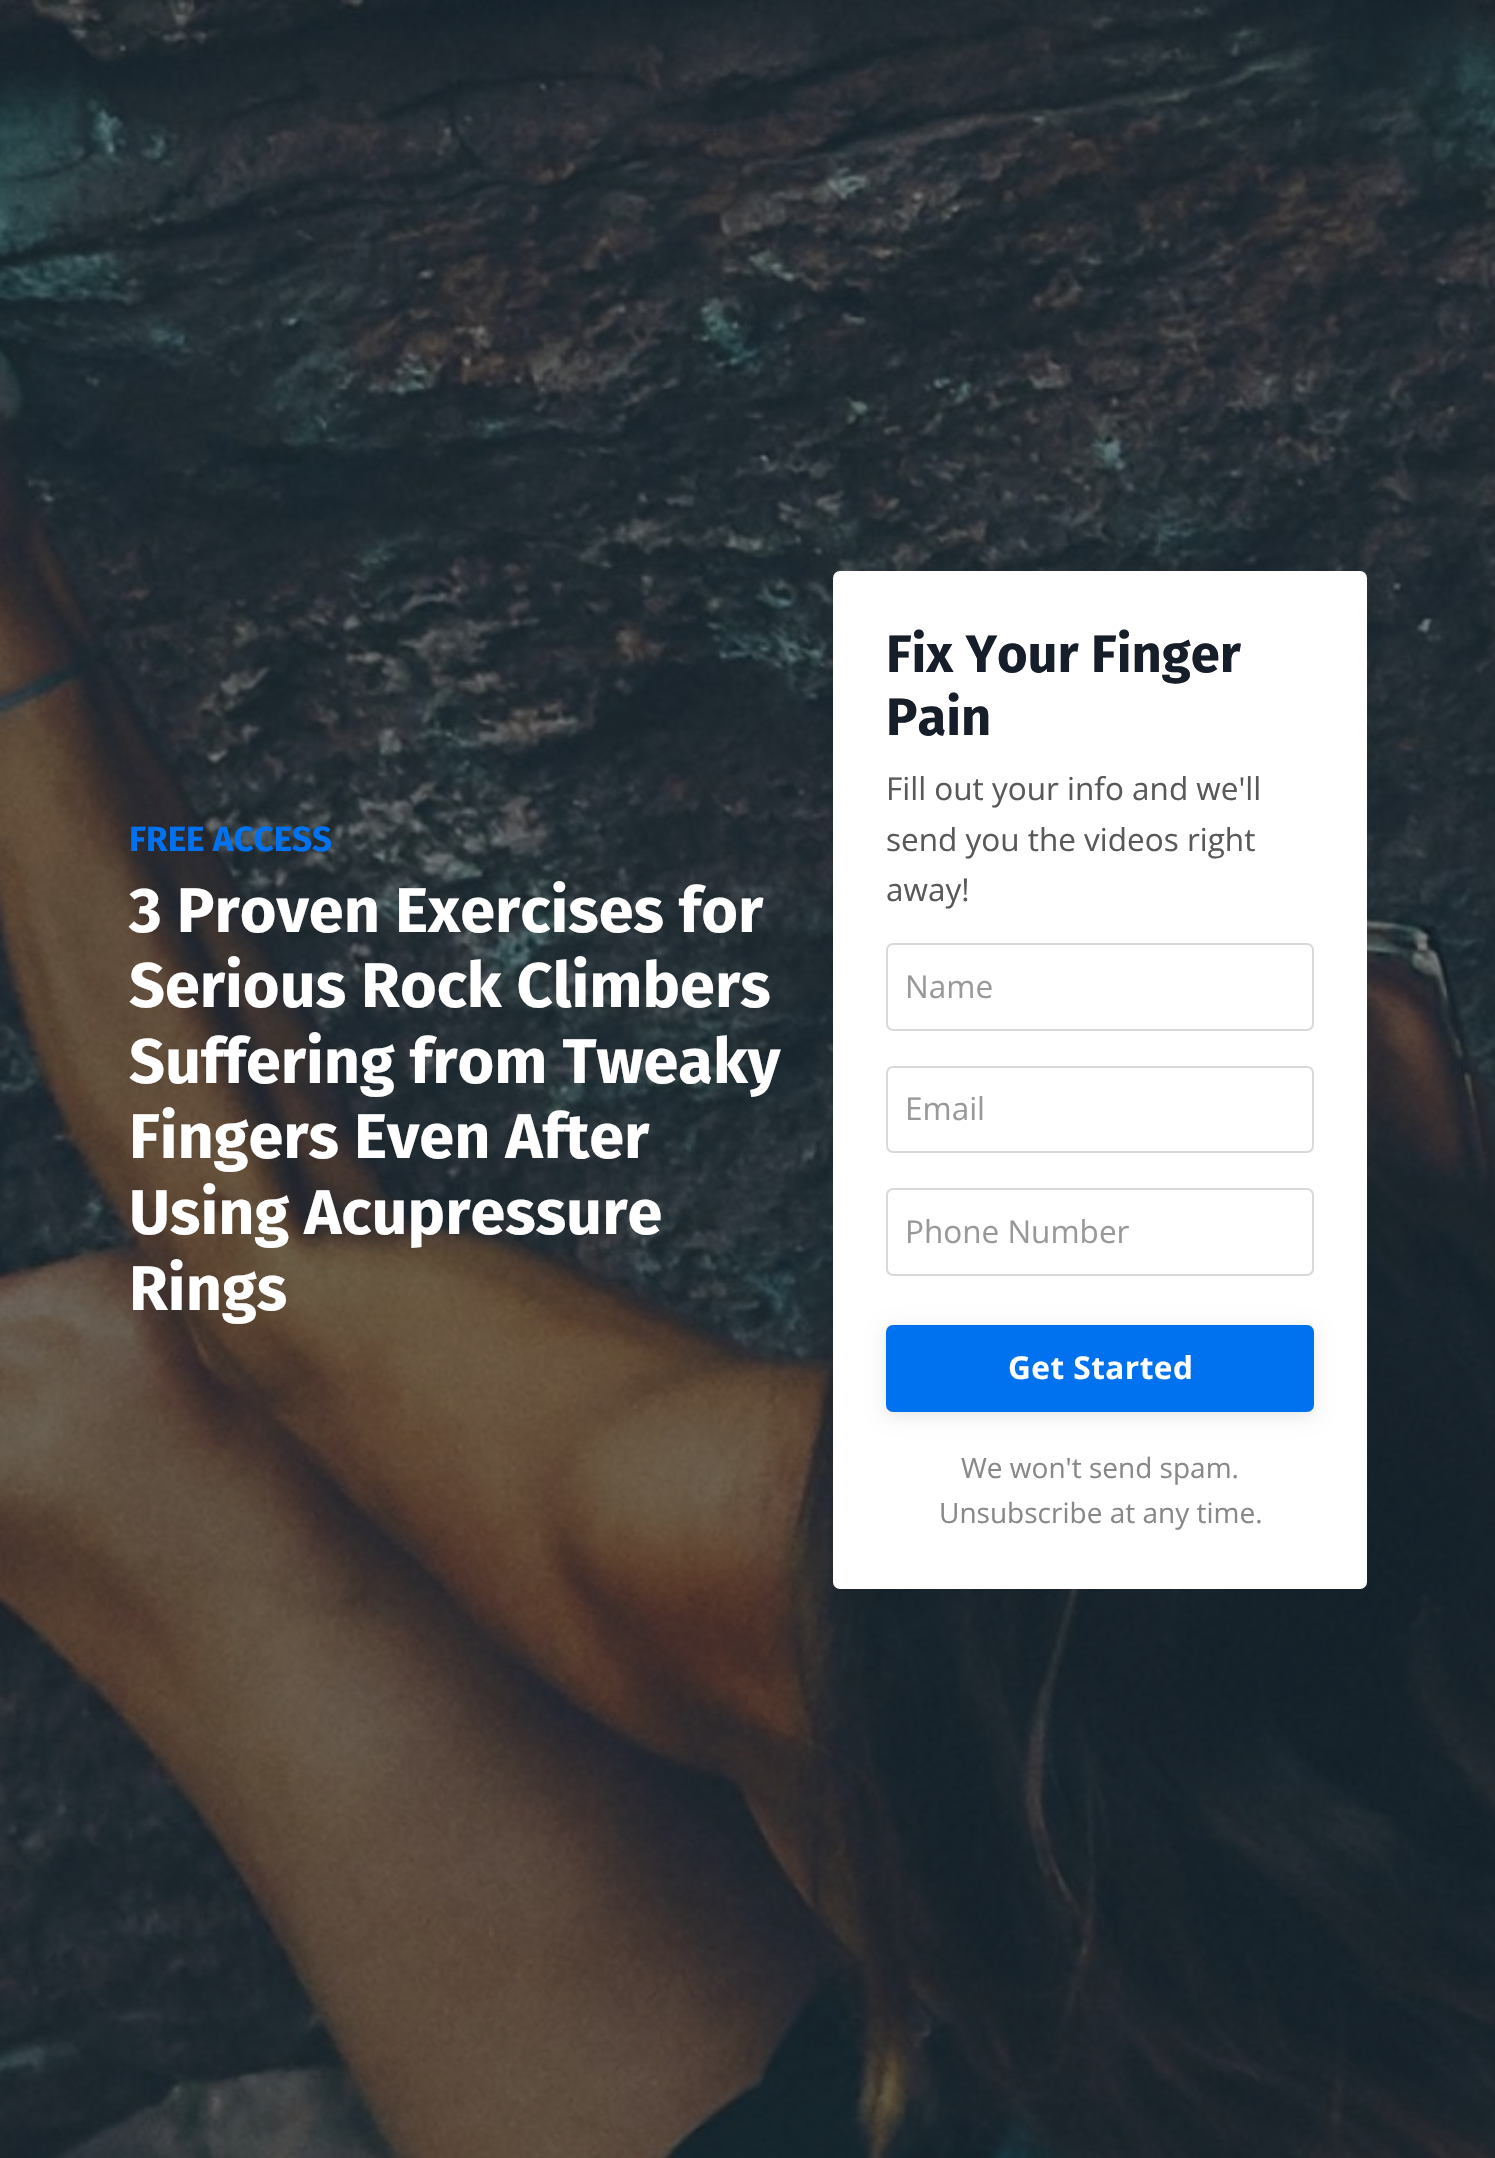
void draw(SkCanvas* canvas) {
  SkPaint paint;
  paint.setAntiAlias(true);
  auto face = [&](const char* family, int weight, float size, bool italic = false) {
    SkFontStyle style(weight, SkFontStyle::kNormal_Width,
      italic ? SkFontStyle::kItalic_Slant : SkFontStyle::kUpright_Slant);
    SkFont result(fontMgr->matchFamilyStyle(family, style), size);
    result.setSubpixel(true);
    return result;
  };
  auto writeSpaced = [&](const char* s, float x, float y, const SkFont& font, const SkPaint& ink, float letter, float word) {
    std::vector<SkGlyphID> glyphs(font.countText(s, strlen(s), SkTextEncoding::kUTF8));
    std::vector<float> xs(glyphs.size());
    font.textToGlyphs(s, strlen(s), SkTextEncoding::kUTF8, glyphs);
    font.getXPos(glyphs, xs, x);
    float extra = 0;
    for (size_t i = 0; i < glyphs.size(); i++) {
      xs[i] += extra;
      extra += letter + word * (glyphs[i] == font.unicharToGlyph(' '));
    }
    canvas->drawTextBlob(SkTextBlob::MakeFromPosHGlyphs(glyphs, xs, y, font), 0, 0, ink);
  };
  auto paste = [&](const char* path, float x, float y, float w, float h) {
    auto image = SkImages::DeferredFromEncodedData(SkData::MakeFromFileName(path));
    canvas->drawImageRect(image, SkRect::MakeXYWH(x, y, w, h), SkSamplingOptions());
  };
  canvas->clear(0xffffffff);
  paste("img/1.png", 0, 0, 1495, 2158);
  paint.setColor(0xffffffff);
  canvas->drawRoundRect(SkRect::MakeXYWH(833, 571, 534, 1018), 7, 7, paint);
  paint.setStroke(true);
  paint.setStrokeWidth(2);
  paint.setColor(0xffd9d9d9);
  canvas->drawRoundRect(SkRect::MakeXYWH(887, 944, 426, 86), 6, 6, paint);
  canvas->drawRoundRect(SkRect::MakeXYWH(887, 1067, 426, 85), 6, 6, paint);
  canvas->drawRoundRect(SkRect::MakeXYWH(887, 1189, 426, 86), 6, 6, paint);
  paint.setStroke(false);
  paint.setColor(0x1a000000);
  paint.setMaskFilter(SkMaskFilter::MakeBlur(kNormal_SkBlurStyle, 9));
  canvas->drawRoundRect(SkRect::MakeXYWH(886, 1328, 428, 88), 7, 7, paint);
  paint.setMaskFilter(nullptr);
  paint.setColor(0xff0072ef);
  canvas->drawRoundRect(SkRect::MakeXYWH(888, 1327, 424, 83), 5, 5, paint);
  paint.setStroke(true);
  paint.setStrokeWidth(4);
  canvas->drawRoundRect(SkRect::MakeXYWH(888, 1327, 424, 83), 5, 5, paint);
  auto f0 = face("Fira Sans", 700, 35);
  paint.setStroke(false);
  canvas->drawString("FREE ACCESS", 129, 851, f0, paint);
  auto f1 = face("Fira Sans", 700, 63);
  paint.setColor(0xffffffff);
  {
    const struct { const char* s; float x, y; } items[] = {
      {"3 Proven Exercises for", 129, 932},
      {"Serious Rock Climbers", 129, 1007},
      {"Suffering from Tweaky", 129, 1083},
      {"Fingers Even After", 129, 1158},
      {"Using Acupressure", 129, 1234},
      {"Rings", 129, 1310},
    };
    for (auto [s, x, y] : items) {
      canvas->drawString(s, x, y, f1, paint);
    }
  }
  auto f2 = face("Fira Sans", 700, 52.5f);
  paint.setColor(0xff161e2a);
  canvas->drawString("Fix Your Finger", 886, 672, f2, paint);
  canvas->drawString("Pain", 886, 735, f2, paint);
  auto f3 = face("Open Sans", 400, 31.5f);
  paint.setColor(0xff595959);
  {
    const struct { const char* s; float x, y; } items[] = {
      {"Fill out your info and we'll", 886, 800},
      {"send you the videos right", 886, 851},
      {"away!", 886, 901},
    };
    for (auto [s, x, y] : items) {
      canvas->drawString(s, x, y, f3, paint);
    }
  }
  paint.setColor(0xff999999);
  {
    const struct { const char* s; float x, y; } items[] = {
      {"Name", 905, 998},
      {"Email", 905, 1120},
      {"Phone Number", 905, 1243},
    };
    for (auto [s, x, y] : items) {
      canvas->drawString(s, x, y, f3, paint);
    }
  }
  auto f4 = face("Open Sans", 700, 31.5f);
  paint.setColor(0xffffffff);
  writeSpaced("Get Started", 1008, 1379, f4, paint, 0.5f, 0);
  auto f5 = face("Open Sans", 400, 28);
  paint.setColor(0xff888888);
  canvas->drawString("We won't send spam.", 961, 1478, f5, paint);
  canvas->drawString("Unsubscribe at any time.", 939, 1523, f5, paint);
}
